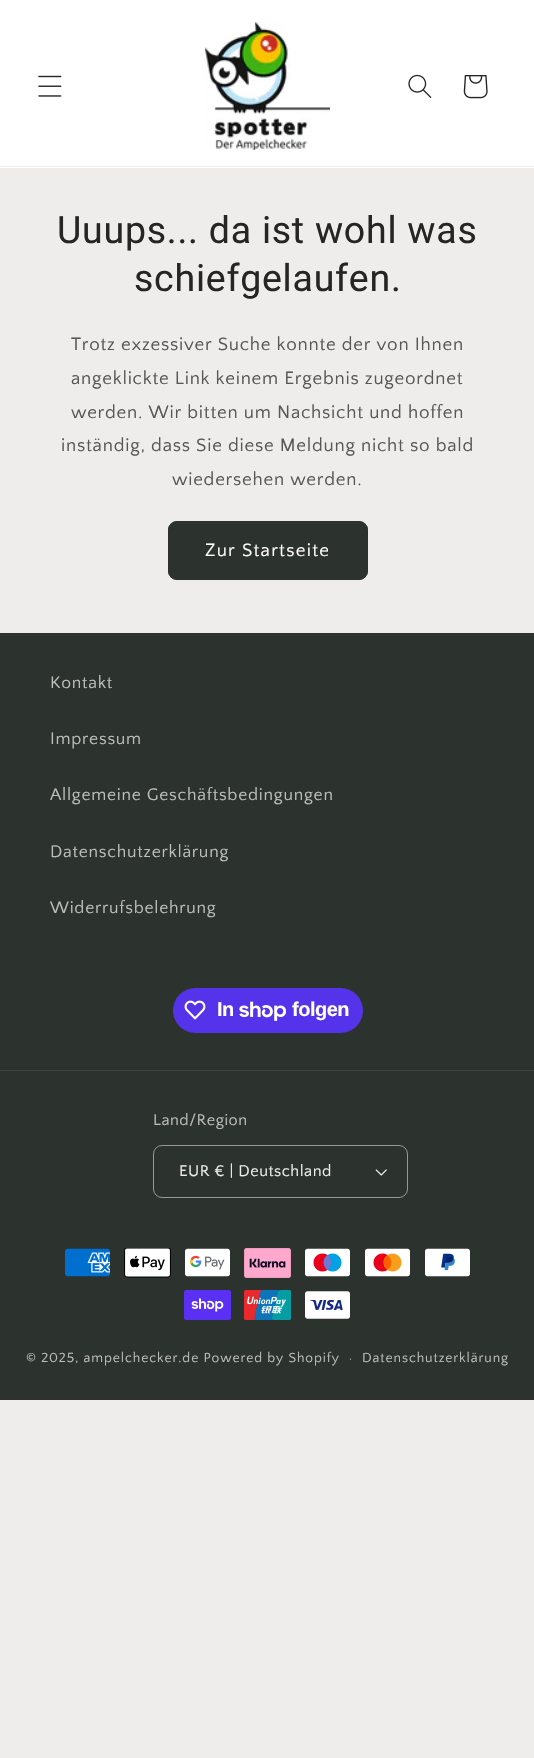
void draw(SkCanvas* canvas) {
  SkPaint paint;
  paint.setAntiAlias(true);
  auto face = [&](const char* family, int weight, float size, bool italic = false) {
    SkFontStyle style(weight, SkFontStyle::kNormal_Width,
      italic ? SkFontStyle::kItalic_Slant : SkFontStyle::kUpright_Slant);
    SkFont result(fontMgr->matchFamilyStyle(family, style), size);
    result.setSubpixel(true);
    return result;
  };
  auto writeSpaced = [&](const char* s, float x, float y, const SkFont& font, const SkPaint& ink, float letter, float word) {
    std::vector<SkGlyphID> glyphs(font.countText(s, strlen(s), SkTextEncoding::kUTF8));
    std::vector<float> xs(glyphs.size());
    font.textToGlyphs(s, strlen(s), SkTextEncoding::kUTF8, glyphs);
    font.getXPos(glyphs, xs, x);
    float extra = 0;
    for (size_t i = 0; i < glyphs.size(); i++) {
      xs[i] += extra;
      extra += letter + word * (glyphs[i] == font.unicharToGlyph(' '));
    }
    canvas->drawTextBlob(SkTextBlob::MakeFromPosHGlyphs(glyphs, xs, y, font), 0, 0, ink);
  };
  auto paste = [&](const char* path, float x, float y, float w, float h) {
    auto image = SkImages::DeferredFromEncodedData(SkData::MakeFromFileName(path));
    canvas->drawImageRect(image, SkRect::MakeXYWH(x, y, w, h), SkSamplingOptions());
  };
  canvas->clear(0xffefecec);
  paint.setColor(0xffffffff);
  canvas->drawRect(SkRect::MakeXYWH(0, 0, 534, 168), paint);
  paint.setColor(0xffeeeeee);
  canvas->drawRect(SkRect::MakeXYWH(0, 166, 534, 1), paint);
  paste("img/1.png", 38, 75, 24, 22);
  paste("img/2.png", 205, 22, 125, 128);
  paste("img/3.png", 408, 74, 24, 24);
  paste("img/4.png", 463, 75, 25, 24);
  paint.setColor(0xff2c332f);
  canvas->drawRoundRect(SkRect::MakeXYWH(168, 521, 200, 59), 9, 9, paint);
  paint.setStroke(true);
  paint.setStrokeWidth(1);
  canvas->drawRoundRect(SkRect::MakeXYWH(168.5f, 521.5f, 199, 58), 8.5f, 8.5f, paint);
  paint.setStroke(false);
  canvas->drawRect(SkRect::MakeXYWH(0, 633, 534, 767), paint);
  paint.setColor(0xff5433eb);
  canvas->drawRoundRect(SkRect::MakeXYWH(173, 988, 190, 45), 22.5f, 22.5f, paint);
  paste("img/5.png", 184, 1000, 22, 20);
  paste("img/6.png", 239, 1001, 47, 20);
  paint.setColor(0xff3c423e);
  canvas->drawRect(SkRect::MakeXYWH(0, 1070, 534, 1), paint);
  paste("img/7.png", 375, 1169, 12, 7);
  paint.setStroke(true);
  paint.setColor(0xff979997);
  canvas->drawRoundRect(SkRect::MakeXYWH(153.5f, 1145.5f, 254, 52), 8.5f, 8.5f, paint);
  paste("img/8.png", 65, 1248, 45, 29);
  paste("img/9.png", 124, 1248, 47, 30);
  paste("img/10.png", 185, 1248, 45, 29);
  paste("img/11.png", 244, 1248, 47, 30);
  paste("img/12.png", 305, 1248, 45, 29);
  paste("img/13.png", 365, 1248, 45, 29);
  paste("img/14.png", 425, 1248, 45, 29);
  paste("img/15.png", 184, 1290, 47, 30);
  paste("img/16.png", 244, 1290, 47, 30);
  paste("img/17.png", 305, 1291, 45, 28);
  auto f0 = face("Roboto", 400, 37.5f);
  paint.setStroke(false);
  paint.setColor(0xff252525);
  writeSpaced("Uuups... da ist wohl was", 57, 243, f0, paint, 0.75f, 0);
  writeSpaced("schiefgelaufen.", 134, 291, f0, paint, 0.75f, 0);
  auto f1 = face("Quattrocento Sans", 400, 18.75f);
  paint.setColor(0xff585757);
  {
    const struct { const char* s; float x, y; } items[] = {
      {"Trotz exzessiver Suche konnte der von Ihnen", 71, 350},
      {"angeklickte Link keinem Ergebnis zugeordnet", 71, 384},
      {"werden. Wir bitten um Nachsicht und hoffen", 71, 418},
      {"inständig, dass Sie diese Meldung nicht so bald", 61, 451},
      {"wiedersehen werden.", 172, 485},
    };
    for (auto [s, x, y] : items) {
      writeSpaced(s, x, y, f1, paint, 0.75f, 0);
    }
  }
  paint.setColor(0xffffffff);
  writeSpaced("Zur Startseite", 205, 556, f1, paint, 1.25f, 0);
  auto f2 = face("Quattrocento Sans", 400, 17.5f);
  paint.setColor(0xffbebebd);
  {
    const struct { const char* s; float x, y; } items[] = {
      {"Kontakt", 50, 688},
      {"Impressum", 50, 744},
      {"Allgemeine Geschäftsbedingungen", 50, 800},
      {"Datenschutzerklärung", 50, 857},
      {"Widerrufsbelehrung", 50, 913},
    };
    for (auto [s, x, y] : items) {
      writeSpaced(s, x, y, f2, paint, 0.75f, 0);
    }
  }
  auto f3 = face("Liberation Sans", 700, 20);
  paint.setColor(0xffffffff);
  writeSpaced("In", 217, 1016, f3, paint, -0.5f, 0);
  writeSpaced("folgen", 292, 1016, f3, paint, -0.5f, 0);
  auto f4 = face("Quattrocento Sans", 400, 16.25f);
  paint.setColor(0xffbebebd);
  writeSpaced("Land/Region", 153, 1125, f4, paint, 0.5f, 0);
  paint.setColor(0xffefecec);
  writeSpaced("EUR € | Deutschland", 179, 1176, f4, paint, 0.5f, 0);
  auto f5 = face("Quattrocento Sans", 400, 13.75f);
  paint.setColor(0xffbebebd);
  writeSpaced("© 2025, ampelchecker.de Powered by Shopify", 26, 1362, f5, paint, 0.9f, 0);
  auto f6 = face("Quattrocento Sans", 400, 12);
  writeSpaced("·", 349, 1362, f6, paint, 0.9f, 0);
  writeSpaced("Datenschutzerklärung", 362, 1362, f5, paint, 0.9f, 0);
}
